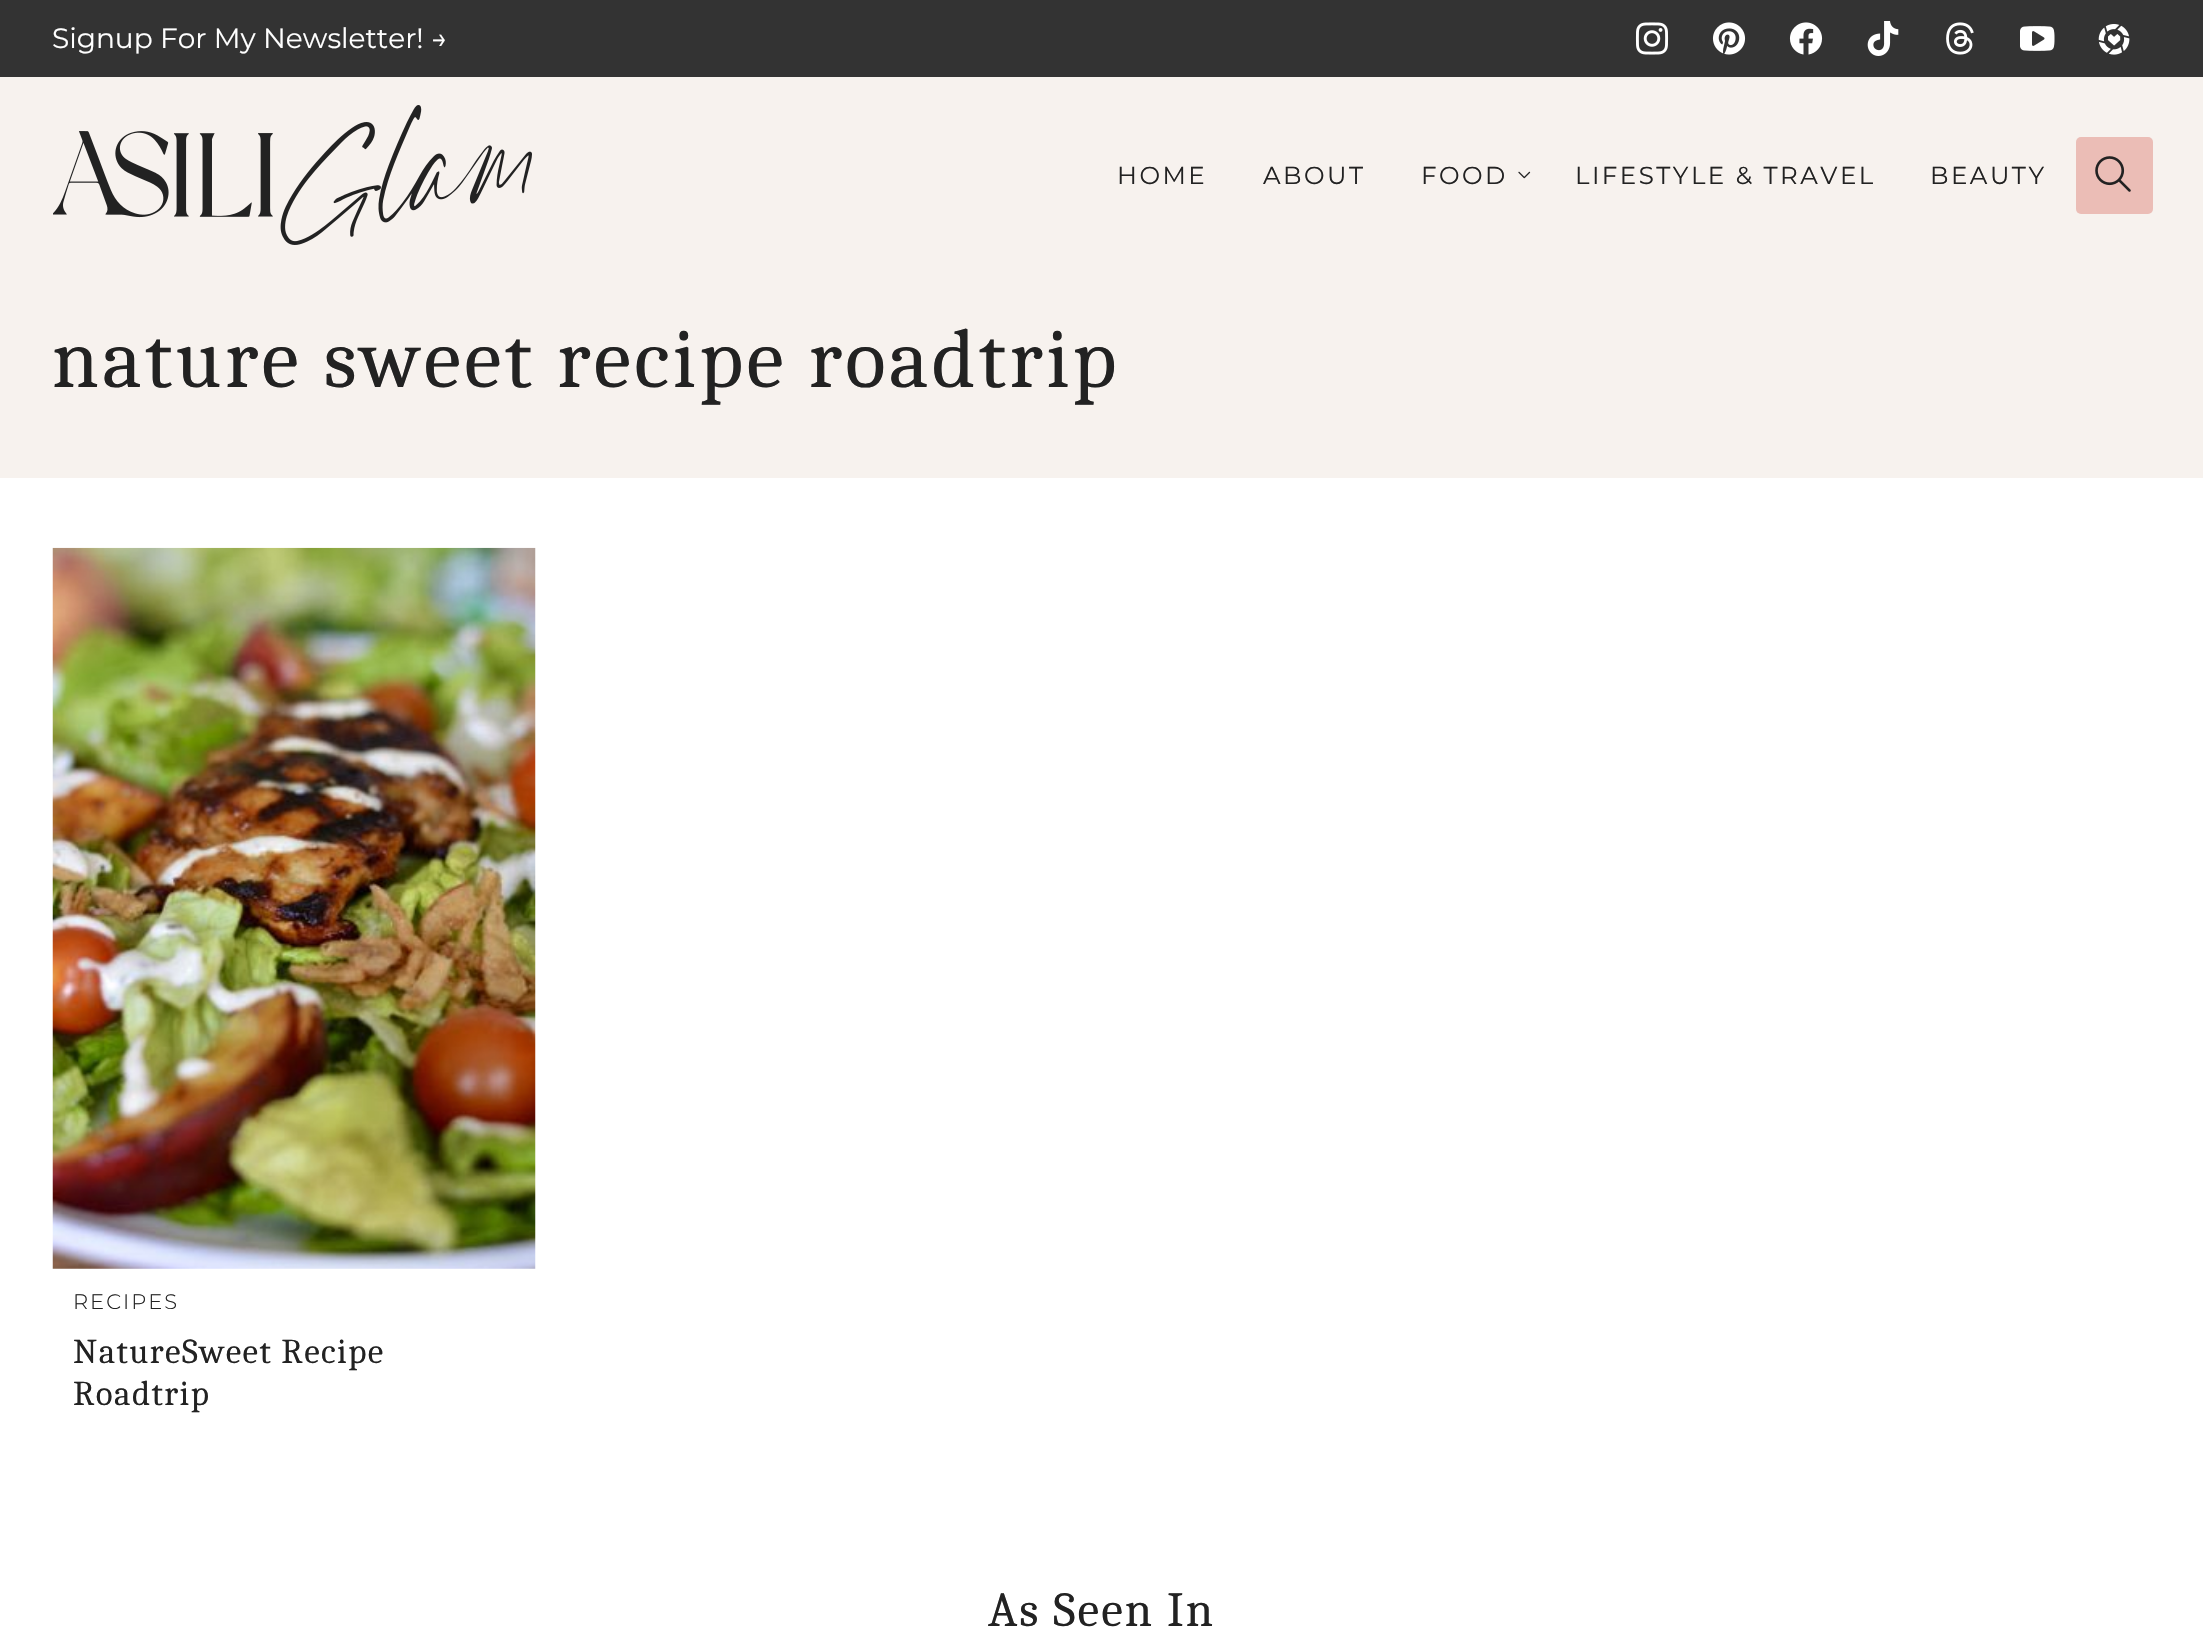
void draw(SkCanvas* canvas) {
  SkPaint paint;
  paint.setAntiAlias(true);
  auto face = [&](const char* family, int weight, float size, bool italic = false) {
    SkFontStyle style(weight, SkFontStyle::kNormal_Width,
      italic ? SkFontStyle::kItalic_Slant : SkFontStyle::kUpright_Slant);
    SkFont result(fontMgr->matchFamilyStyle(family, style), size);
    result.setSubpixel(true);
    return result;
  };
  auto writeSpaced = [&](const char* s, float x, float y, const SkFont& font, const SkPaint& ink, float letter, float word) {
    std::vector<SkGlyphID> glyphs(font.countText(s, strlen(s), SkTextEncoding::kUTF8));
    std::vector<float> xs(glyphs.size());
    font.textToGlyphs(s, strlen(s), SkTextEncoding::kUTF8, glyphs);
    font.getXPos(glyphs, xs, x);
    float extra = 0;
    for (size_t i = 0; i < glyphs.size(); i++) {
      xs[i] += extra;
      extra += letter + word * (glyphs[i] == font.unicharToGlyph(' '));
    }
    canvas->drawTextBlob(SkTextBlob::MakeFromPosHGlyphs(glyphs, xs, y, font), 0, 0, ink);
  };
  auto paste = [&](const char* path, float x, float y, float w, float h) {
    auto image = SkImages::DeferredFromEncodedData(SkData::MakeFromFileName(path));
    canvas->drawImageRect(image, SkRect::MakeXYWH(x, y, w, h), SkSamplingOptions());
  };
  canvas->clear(0xffffffff);
  paint.setColor(0xff333333);
  canvas->drawRect(SkRect::MakeXYWH(0, 0, 2203, 77), paint);
  paste("img/1.png", 1635, 22, 34, 33);
  paste("img/2.png", 1712, 22, 34, 33);
  paste("img/3.png", 1789, 22, 34, 33);
  paste("img/4.png", 1867, 21, 32, 35);
  paste("img/5.png", 1946, 22, 28, 33);
  paste("img/6.png", 2020, 26, 35, 25);
  paste("img/7.png", 2098, 24, 32, 31);
  paint.setColor(0xfff7f2ee);
  canvas->drawRect(SkRect::MakeXYWH(0, 77, 2203, 401), paint);
  paste("img/8.png", 53, 105, 479, 140);
  paste("img/9.png", 1518, 171, 13, 8);
  paint.setColor(0xffebbdb6);
  canvas->drawRoundRect(SkRect::MakeXYWH(2076, 137, 77, 77), 5, 5, paint);
  paste("img/10.png", 2095, 156, 36, 36);
  paste("img/11.png", 52, 547, 484, 722);
  auto f0 = face("Montserrat", 400, 28);
  paint.setColor(0xffffffff);
  canvas->drawString("Signup For My Newsletter! →", 52, 48, f0, paint);
  auto f1 = face("Montserrat", 400, 24.5f);
  paint.setColor(0xff222222);
  {
    const struct { const char* s; float x, y; } items[] = {
      {"HOME", 1117, 184},
      {"ABOUT", 1263, 184},
      {"FOOD", 1421, 184},
      {"LIFESTYLE & TRAVEL", 1575, 184},
      {"BEAUTY", 1930, 184},
    };
    for (auto [s, x, y] : items) {
      writeSpaced(s, x, y, f1, paint, 2.5f, 0);
    }
  }
  auto f2 = face("Caladea", 400, 84);
  writeSpaced("nature sweet recipe roadtrip", 52, 387, f2, paint, 3.35f, 0);
  auto f3 = face("Montserrat", 300, 21);
  writeSpaced("RECIPES", 73, 1309, f3, paint, 2, 0);
  auto f4 = face("Caladea", 400, 35);
  writeSpaced("NatureSweet Recipe", 73, 1363, f4, paint, 1.4f, 0);
  writeSpaced("Roadtrip", 73, 1405, f4, paint, 1.4f, 0);
  auto f5 = face("Caladea", 400, 49);
  writeSpaced("As Seen In", 988, 1626, f5, paint, 2, 0);
}
